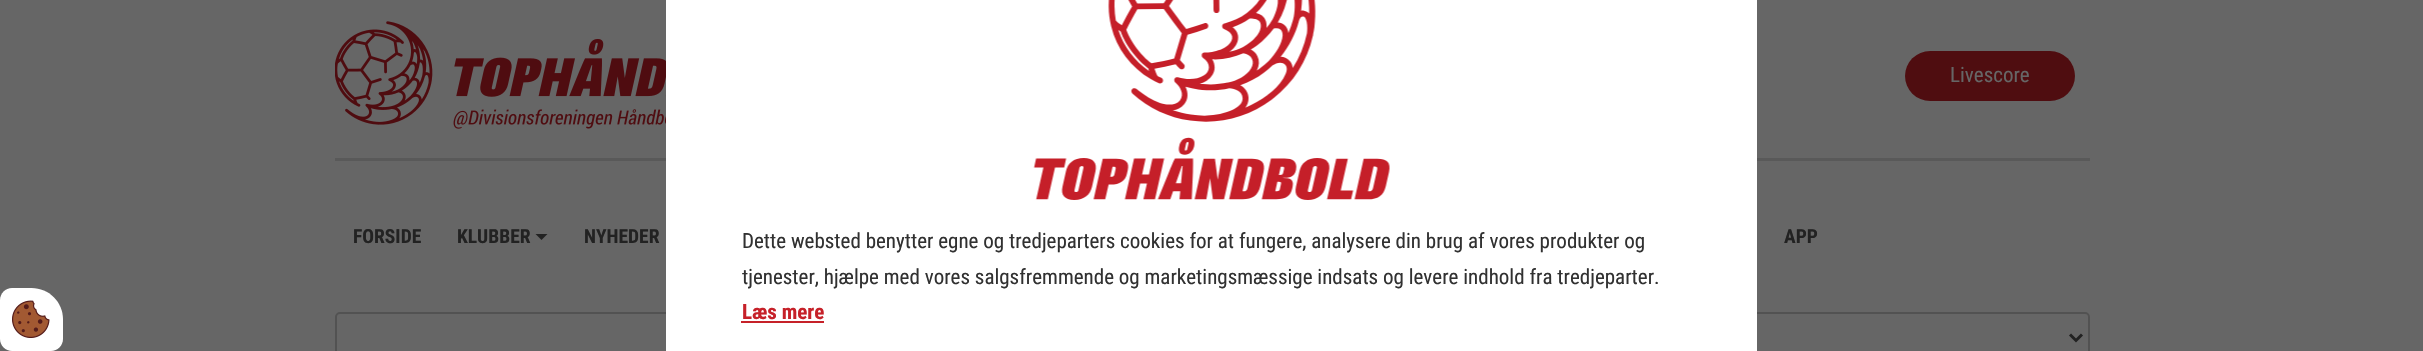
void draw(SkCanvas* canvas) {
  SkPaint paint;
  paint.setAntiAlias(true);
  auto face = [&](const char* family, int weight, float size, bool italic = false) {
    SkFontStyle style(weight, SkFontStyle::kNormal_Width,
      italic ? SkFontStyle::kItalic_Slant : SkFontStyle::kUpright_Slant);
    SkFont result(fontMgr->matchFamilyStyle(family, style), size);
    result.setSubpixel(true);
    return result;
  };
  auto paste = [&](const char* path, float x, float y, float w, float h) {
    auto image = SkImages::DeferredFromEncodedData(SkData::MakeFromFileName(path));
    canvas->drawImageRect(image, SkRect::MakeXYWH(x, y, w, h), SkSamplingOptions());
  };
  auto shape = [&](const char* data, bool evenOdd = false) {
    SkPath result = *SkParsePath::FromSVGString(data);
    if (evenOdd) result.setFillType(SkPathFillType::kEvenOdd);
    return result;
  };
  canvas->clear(0xff666666);
  paste("img/1.png", 335, 21, 331, 108);
  paint.setColor(0xff4f0d10);
  canvas->drawRoundRect(SkRect::MakeXYWH(1905, 51, 170, 50), 25, 25, paint);
  paint.setColor(0xff595959);
  canvas->drawRect(SkRect::MakeXYWH(335, 158, 1755, 3), paint);
  paint.setColor(0xff222222);
  canvas->drawPath(shape("M535.5 234H547.5L541.5 240Z"), paint);
  paint.setStroke(true);
  paint.setStrokeWidth(2);
  paint.setColor(0xff525252);
  canvas->drawRoundRect(SkRect::MakeXYWH(336, 313, 853, 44), 4, 4, paint);
  canvas->drawRoundRect(SkRect::MakeXYWH(1236, 313, 853, 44), 4, 4, paint);
  paint.setStrokeWidth(3);
  paint.setColor(0xff222222);
  canvas->drawPath(shape("M2070 334.5L2076 340.5L2082 334.5"), paint);
  paint.setStroke(false);
  paint.setColor(0xffffffff);
  canvas->drawPath(shape("M12 288H31.5C49 288 63 302 63 319.5V339C63 345.5 57.5 351 51 351H12C5.5 351 0 345.5 0 339V300C0 293.5 5.5 288 12 288Z"), paint);
  paste("img/2.png", 12, 300, 38, 38);
  canvas->drawRect(SkRect::MakeXYWH(666, 0, 1091, 351), paint);
  paste("img/3.png", 1033, 0, 357, 200);
  paint.setColor(0xffc62129);
  canvas->drawRect(SkRect::MakeXYWH(741, 321, 83, 2), paint);
  auto f0 = face("Roboto Condensed", 400, 21);
  paint.setColor(0xff666666);
  canvas->drawString("Livescore", 1950, 82, f0, paint);
  auto f1 = face("Roboto Condensed", 700, 19.5f);
  paint.setColor(0xff222222);
  {
    const struct { const char* s; float x, y; } items[] = {
      {"FORSIDE", 353, 243},
      {"KLUBBER", 457, 243},
      {"NYHEDER", 584, 243},
      {"APP", 1784, 243},
    };
    for (auto [s, x, y] : items) {
      canvas->drawString(s, x, y, f1, paint);
    }
  }
  paint.setColor(0xff313131);
  canvas->drawString("Dette websted benytter egne og tredjeparters cookies for at fungere, analysere din brug af vores produkter og", 742, 248, f0, paint);
  canvas->drawString("tjenester, hjælpe med vores salgsfremmende og marketingsmæssige indsats og levere indhold fra tredjeparter.", 742, 284, f0, paint);
  auto f2 = face("Roboto Condensed", 700, 21);
  paint.setColor(0xffc62129);
  canvas->drawString("Læs mere", 742, 319, f2, paint);
}
